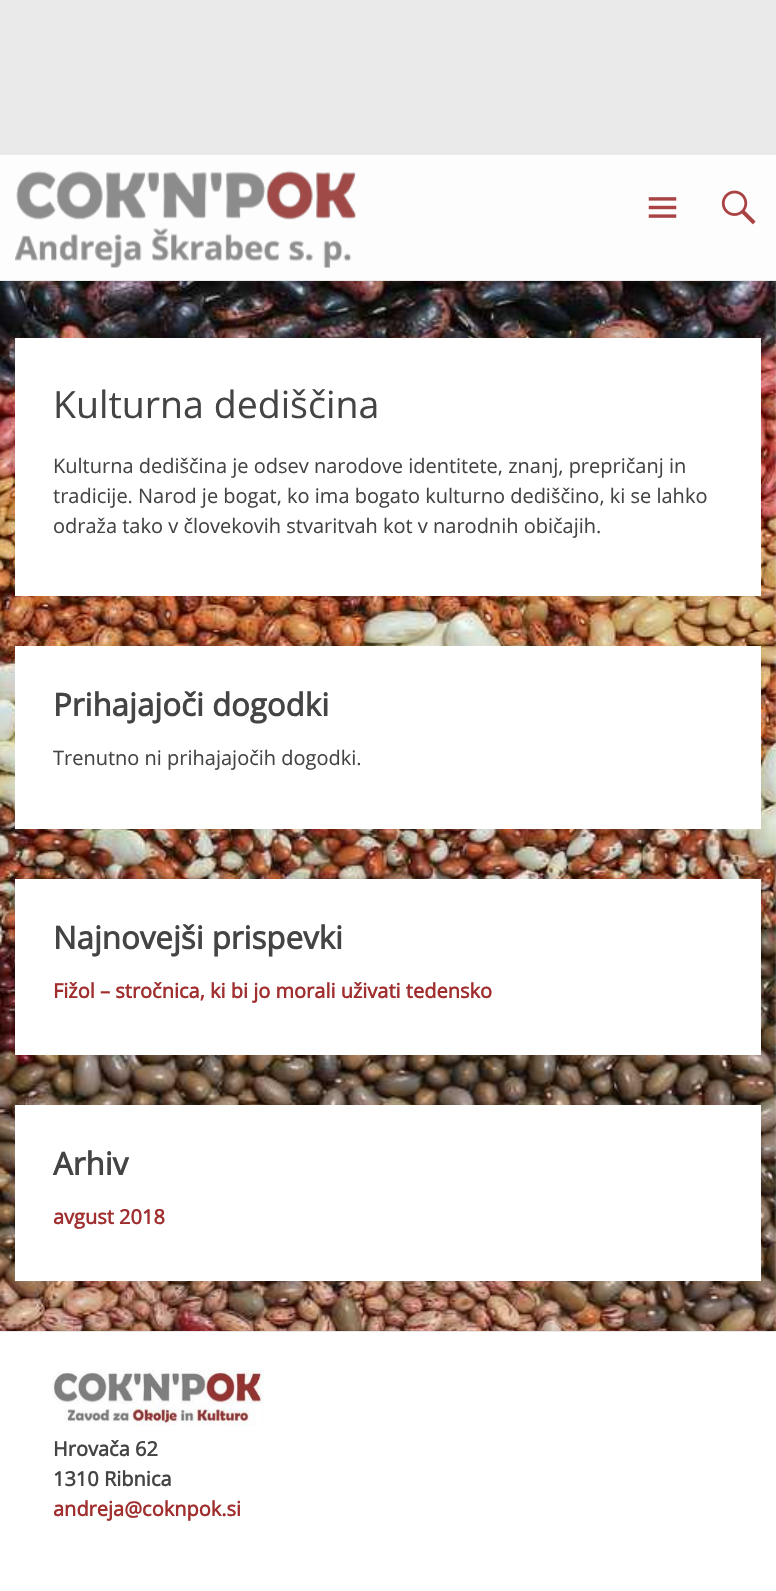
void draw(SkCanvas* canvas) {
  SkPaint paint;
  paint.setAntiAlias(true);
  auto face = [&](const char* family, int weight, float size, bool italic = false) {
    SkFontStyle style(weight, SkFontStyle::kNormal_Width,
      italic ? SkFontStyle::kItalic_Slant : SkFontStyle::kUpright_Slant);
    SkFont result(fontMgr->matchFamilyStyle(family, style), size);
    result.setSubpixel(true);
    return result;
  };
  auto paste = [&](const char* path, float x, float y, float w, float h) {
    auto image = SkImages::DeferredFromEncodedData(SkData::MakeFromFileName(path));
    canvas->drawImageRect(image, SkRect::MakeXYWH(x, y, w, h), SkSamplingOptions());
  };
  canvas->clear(0xffeaeaea);
  paint.setColor(0xfffdfdfd);
  canvas->drawRect(SkRect::MakeXYWH(0, 155, 776, 125), paint);
  paste("img/1.png", 15, 170, 341, 98);
  paste("img/2.png", 648, 197, 29, 21);
  paste("img/3.png", 721, 190, 35, 35);
  paste("img/4.png", 0, 281, 776, 1050);
  {
    const struct { float x, y, w, h; SkColor color; } items[] = {
      {15, 338, 746, 258, 0xffffffff},
      {15, 646, 746, 183, 0xffffffff},
      {15, 879, 746, 176, 0xffffffff},
      {15, 1105, 746, 176, 0xffffffff},
      {0, 1332, 776, 259, 0xffffffff},
    };
    for (auto [x, y, w, h, color] : items) {
      paint.setColor(color);
      canvas->drawRect(SkRect::MakeXYWH(x, y, w, h), paint);
    }
  }
  paste("img/5.png", 52, 1370, 212, 57);
  auto f0 = face("Open Sans", 400, 37.5f);
  paint.setColor(0xff444444);
  canvas->drawString("Kulturna dediščina", 53, 418, f0, paint);
  auto f1 = face("Open Sans", 400, 20);
  {
    const struct { const char* s; float x, y; } items[] = {
      {"Kulturna dediščina je odsev narodove identitete, znanj, prepričanj in", 53, 473},
      {"tradicije. Narod je bogat, ko ima bogato kulturno dediščino, ki se lahko", 53, 503},
      {"odraža tako v človekovih stvaritvah kot v narodnih običajih.", 53, 533},
    };
    for (auto [s, x, y] : items) {
      canvas->drawString(s, x, y, f1, paint);
    }
  }
  auto f2 = face("Open Sans", 700, 31.25f);
  canvas->drawString("Prihajajoči dogodki", 53, 716, f2, paint);
  canvas->drawString("Trenutno ni prihajajočih dogodki.", 53, 765, f1, paint);
  canvas->drawString("Najnovejši prispevki", 53, 949, f2, paint);
  auto f3 = face("Open Sans", 700, 20);
  paint.setColor(0xffa02e2e);
  canvas->drawString("Fižol – stročnica, ki bi jo morali uživati tedensko", 53, 998, f3, paint);
  paint.setColor(0xff444444);
  canvas->drawString("Arhiv", 53, 1175, f2, paint);
  paint.setColor(0xffa02e2e);
  canvas->drawString("avgust 2018", 53, 1224, f3, paint);
  paint.setColor(0xff444444);
  canvas->drawString("Hrovača 62", 53, 1456, f3, paint);
  canvas->drawString("1310 Ribnica", 53, 1486, f3, paint);
  paint.setColor(0xffa02e2e);
  canvas->drawString("andreja@coknpok.si", 53, 1516, f3, paint);
}
